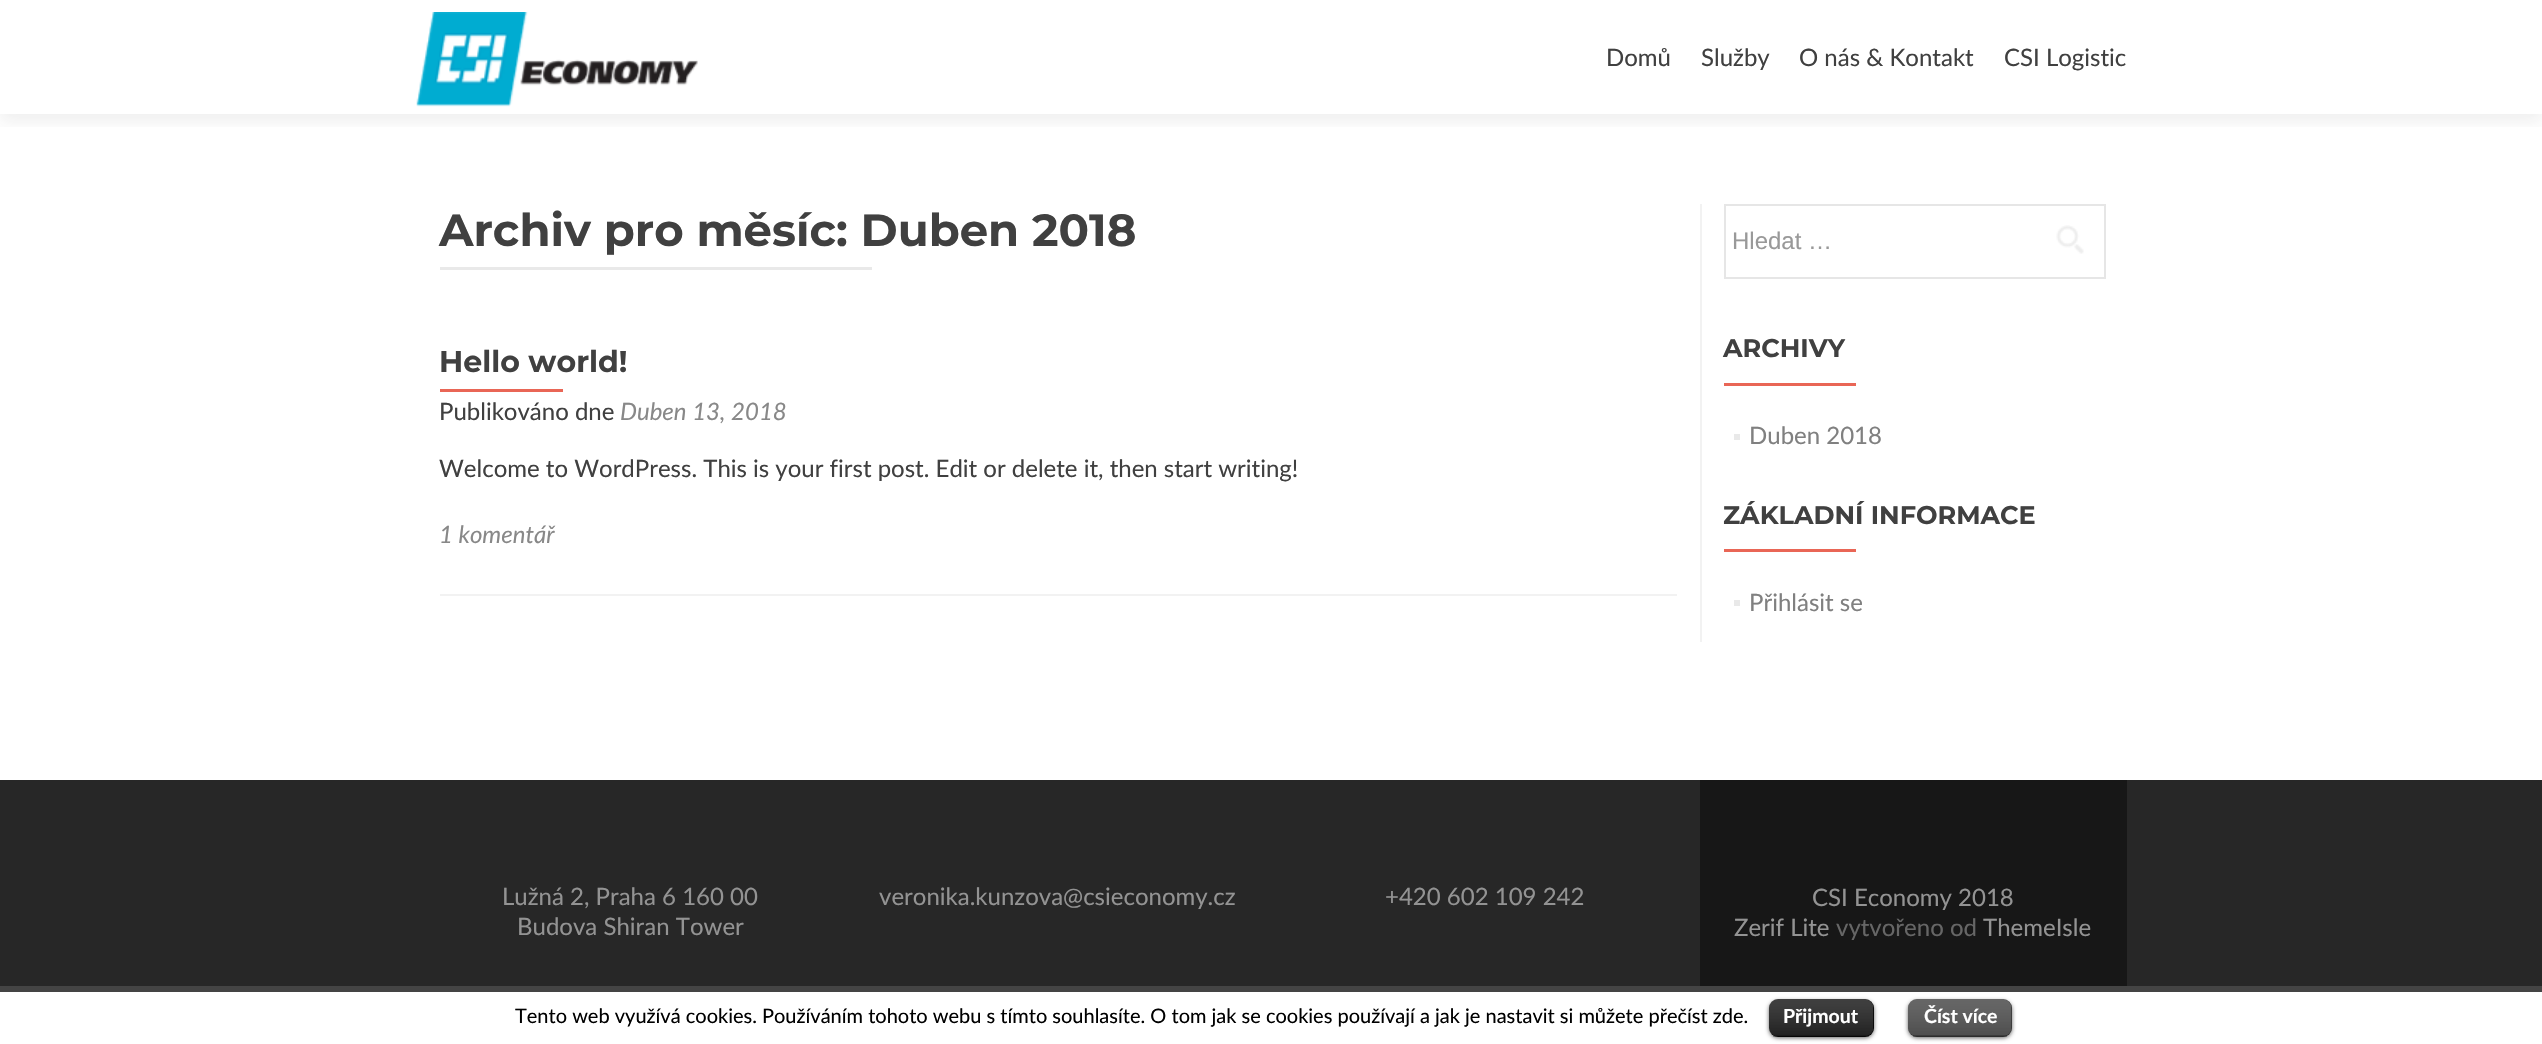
void draw(SkCanvas* canvas) {
  SkPaint paint;
  paint.setAntiAlias(true);
  auto face = [&](const char* family, int weight, float size, bool italic = false) {
    SkFontStyle style(weight, SkFontStyle::kNormal_Width,
      italic ? SkFontStyle::kItalic_Slant : SkFontStyle::kUpright_Slant);
    SkFont result(fontMgr->matchFamilyStyle(family, style), size);
    result.setSubpixel(true);
    return result;
  };
  auto paste = [&](const char* path, float x, float y, float w, float h) {
    auto image = SkImages::DeferredFromEncodedData(SkData::MakeFromFileName(path));
    canvas->drawImageRect(image, SkRect::MakeXYWH(x, y, w, h), SkSamplingOptions());
  };
  canvas->clear(0xffffffff);
  canvas->save();
  canvas->clipRect(SkRect::MakeXYWH(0, 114, 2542, 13));
  paint.setColor(0x14323232);
  paint.setMaskFilter(SkMaskFilter::MakeBlur(kNormal_SkBlurStyle, 8));
  canvas->drawRect(SkRect::MakeXYWH(0, 8, 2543, 114), paint);
  paint.setMaskFilter(nullptr);
  canvas->restore();
  paste("img/1.png", 416, 12, 282, 95);
  {
    const struct { float x, y, w, h; SkColor color; } items[] = {
      {440, 267, 432, 3, 0xffe9e9e9},
      {440, 594, 1237, 2, 0xfff2f2f2},
      {440, 389, 123, 3, 0xffe96656},
      {1700, 204, 2, 438, 0xfff2f2f2},
    };
    for (auto [x, y, w, h, color] : items) {
      paint.setColor(color);
      canvas->drawRect(SkRect::MakeXYWH(x, y, w, h), paint);
    }
  }
  paint.setStroke(true);
  paint.setStrokeWidth(2);
  paint.setColor(0xffe6e6e6);
  canvas->drawRect(SkRect::MakeXYWH(1725, 205, 380, 73), paint);
  paste("img/2.png", 2056, 225, 28, 29);
  paint.setStroke(false);
  {
    const struct { float x, y, w, h; SkColor color; } items[] = {
      {1724, 383, 132, 3, 0xffe96656},
      {1734, 434, 6, 6, 0xffe9e9e9},
      {1724, 549, 132, 3, 0xffe96656},
      {1734, 600, 6, 6, 0xffe9e9e9},
      {0, 780, 2542, 206, 0xff272727},
      {1700, 780, 427, 206, 0xff171717},
      {0, 986, 2542, 6, 0xff444444},
    };
    for (auto [x, y, w, h, color] : items) {
      paint.setColor(color);
      canvas->drawRect(SkRect::MakeXYWH(x, y, w, h), paint);
    }
  }
  paint.setColor(0x99000000);
  paint.setMaskFilter(SkMaskFilter::MakeBlur(kNormal_SkBlurStyle, 2));
  canvas->drawRoundRect(SkRect::MakeXYWH(1769, 1001, 105, 37), 9, 9, paint);
  paint.setMaskFilter(nullptr);
  paint.setColor(0xff000000);
  canvas->drawRoundRect(SkRect::MakeXYWH(1769, 999, 105, 38), 9, 9, paint);
  paste("img/3.png", 1769, 999, 105, 38);
  paint.setColor(0x40000000);
  canvas->drawRect(SkRect::MakeXYWH(1773, 1035, 96, 2), paint);
  paint.setColor(0x99000000);
  paint.setMaskFilter(SkMaskFilter::MakeBlur(kNormal_SkBlurStyle, 2));
  canvas->drawRoundRect(SkRect::MakeXYWH(1908, 1001, 104, 37), 9, 9, paint);
  paint.setMaskFilter(nullptr);
  paint.setColor(0xff333333);
  canvas->drawRoundRect(SkRect::MakeXYWH(1908, 999, 104, 38), 9, 9, paint);
  paste("img/4.png", 1908, 999, 104, 38);
  paint.setColor(0x40000000);
  canvas->drawRect(SkRect::MakeXYWH(1913, 1035, 94, 2), paint);
  auto f0 = face("Lato", 400, 24);
  paint.setColor(0xff404040);
  {
    const struct { const char* s; float x, y; } items[] = {
      {"Domů", 1606, 66},
      {"Služby", 1701, 66},
      {"O nás & Kontakt", 1799, 66},
      {"CSI Logistic", 2004, 66},
    };
    for (auto [s, x, y] : items) {
      canvas->drawString(s, x, y, f0, paint);
    }
  }
  auto f1 = face("Montserrat", 700, 45);
  canvas->drawString("Archiv pro měsíc: Duben 2018", 439, 246, f1, paint);
  auto f2 = face("Montserrat", 700, 30);
  canvas->drawString("Hello world!", 439, 372, f2, paint);
  canvas->drawString("Publikováno dne", 439, 420, f0, paint);
  auto f3 = face("Lato", 400, 24, true);
  paint.setColor(0xff888888);
  canvas->drawString("Duben 13, 2018", 620, 420, f3, paint);
  paint.setColor(0xff404040);
  canvas->drawString("Welcome to WordPress. This is your first post. Edit or delete it, then start writing!", 439, 477, f0, paint);
  paint.setColor(0xff888888);
  canvas->drawString("1 komentář", 439, 543, f3, paint);
  auto f4 = face("Liberation Sans", 400, 24);
  paint.setColor(0xff999999);
  canvas->drawString("Hledat …", 1732, 249, f4, paint);
  auto f5 = face("Montserrat", 700, 25.5f);
  paint.setColor(0xff404040);
  canvas->drawString("ARCHIVY", 1723, 357, f5, paint);
  paint.setColor(0xff808080);
  canvas->drawString("Duben 2018", 1749, 444, f0, paint);
  paint.setColor(0xff404040);
  canvas->drawString("ZÁKLADNÍ INFORMACE", 1723, 524, f5, paint);
  paint.setColor(0xff808080);
  canvas->drawString("Přihlásit se", 1749, 611, f0, paint);
  paint.setColor(0xff939393);
  {
    const struct { const char* s; float x, y; } items[] = {
      {"Lužná 2, Praha 6 160 00", 502, 905},
      {"Budova Shiran Tower", 517, 935},
      {"veronika.kunzova@csieconomy.cz", 879, 905},
      {"+420 602 109 242", 1385, 905},
      {"CSI Economy 2018", 1812, 906},
      {"Zerif Lite", 1734, 936},
    };
    for (auto [s, x, y] : items) {
      canvas->drawString(s, x, y, f0, paint);
    }
  }
  paint.setColor(0xff666666);
  canvas->drawString("vytvořeno od", 1836, 936, f0, paint);
  paint.setColor(0xff939393);
  canvas->drawString("ThemeIsle", 1983, 936, f0, paint);
  auto f6 = face("Lato", 400, 20);
  paint.setColor(0xff000000);
  canvas->drawString("Tento web využívá cookies. Používáním tohoto webu s tímto souhlasíte. O tom jak se cookies používají a jak je nastavit si můžete přečíst zde.", 515, 1023, f6, paint);
  auto f7 = face("Lato", 700, 19.5f);
  paint.setColor(0xffffffff);
  canvas->drawString("Přijmout", 1783, 1023, f7, paint);
  canvas->drawString("Číst více", 1924, 1023, f7, paint);
}
